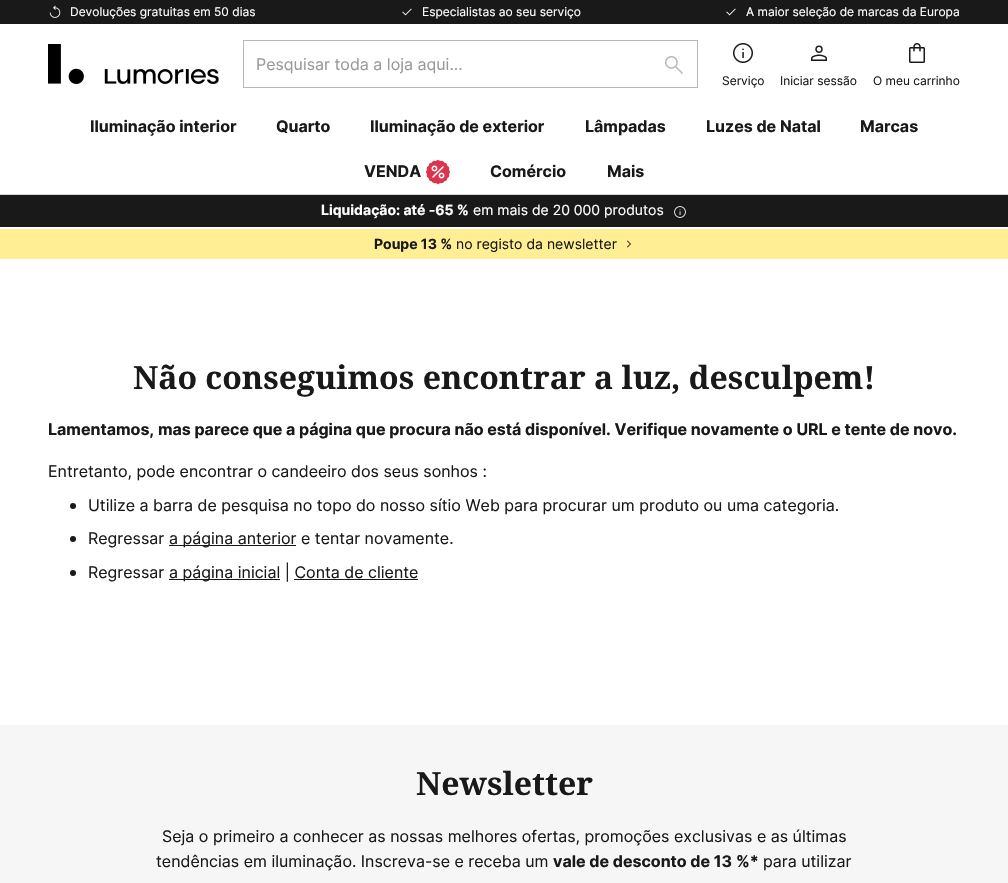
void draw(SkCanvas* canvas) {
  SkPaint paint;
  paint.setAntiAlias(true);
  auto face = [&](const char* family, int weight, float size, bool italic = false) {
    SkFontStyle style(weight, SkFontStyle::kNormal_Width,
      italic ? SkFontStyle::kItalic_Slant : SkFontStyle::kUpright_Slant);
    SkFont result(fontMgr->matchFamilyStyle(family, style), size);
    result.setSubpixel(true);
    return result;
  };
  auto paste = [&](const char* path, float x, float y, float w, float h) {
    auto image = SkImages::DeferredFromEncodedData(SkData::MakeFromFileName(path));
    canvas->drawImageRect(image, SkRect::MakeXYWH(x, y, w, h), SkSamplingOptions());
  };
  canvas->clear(0xffffffff);
  paint.setColor(0xff191919);
  canvas->drawRect(SkRect::MakeXYWH(0, 0, 1008, 24), paint);
  paste("img/1.png", 49, 5, 12, 13);
  paste("img/2.png", 402, 8, 10, 8);
  paste("img/2.png", 726, 8, 10, 8);
  paste("img/3.png", 48, 44, 171, 40);
  paint.setStroke(true);
  paint.setStrokeWidth(1);
  paint.setColor(0xffb8b8b8);
  canvas->drawRect(SkRect::MakeXYWH(243.5f, 40.5f, 454, 47), paint);
  paste("img/4.png", 665, 56, 18, 18);
  paste("img/5.png", 733, 43, 20, 20);
  paste("img/6.png", 811, 45, 16, 16);
  paste("img/7.png", 909, 43, 16, 20);
  paint.setStroke(false);
  paint.setColor(0xffd8d8d8);
  canvas->drawRect(SkRect::MakeXYWH(0, 194, 1008, 1), paint);
  paste("img/8.png", 426, 160, 24, 24);
  paint.setColor(0xff191919);
  canvas->drawRect(SkRect::MakeXYWH(0, 195, 1008, 32), paint);
  paste("img/9.png", 674, 206, 12, 12);
  paint.setColor(0xffffee93);
  canvas->drawRect(SkRect::MakeXYWH(0, 229, 1008, 30), paint);
  paste("img/10.png", 627, 240, 4, 8);
  paint.setColor(0xff191919);
  canvas->drawCircle(73, 506, 3, paint);
  canvas->drawCircle(73, 539, 3, paint);
  canvas->drawRect(SkRect::MakeXYWH(169, 545, 127, 1), paint);
  canvas->drawCircle(73, 573, 3, paint);
  {
    const struct { float x, y, w, h; SkColor color; } items[] = {
      {169, 579, 111, 1, 0xff191919},
      {294, 579, 124, 1, 0xff191919},
      {0, 725, 1008, 158, 0xfff6f6f6},
    };
    for (auto [x, y, w, h, color] : items) {
      paint.setColor(color);
      canvas->drawRect(SkRect::MakeXYWH(x, y, w, h), paint);
    }
  }
  auto f0 = face("Inter", 400, 12);
  paint.setColor(0xffffffff);
  {
    const struct { const char* s; float x, y; } items[] = {
      {"Devoluções gratuitas em 50 dias", 70, 16},
      {"Especialistas ao seu serviço", 422, 16},
      {"A maior seleção de marcas da Europa", 746, 16},
    };
    for (auto [s, x, y] : items) {
      canvas->drawString(s, x, y, f0, paint);
    }
  }
  auto f1 = face("Inter", 400, 16);
  paint.setColor(0xff999999);
  canvas->drawString("Pesquisar toda a loja aqui...", 256, 70, f1, paint);
  paint.setColor(0xff191919);
  {
    const struct { const char* s; float x, y; } items[] = {
      {"Serviço", 722, 85},
      {"Iniciar sessão", 780, 85},
      {"O meu carrinho", 873, 85},
    };
    for (auto [s, x, y] : items) {
      canvas->drawString(s, x, y, f0, paint);
    }
  }
  auto f2 = face("Inter", 700, 16);
  {
    const struct { const char* s; float x, y; } items[] = {
      {"Iluminação interior", 90, 132},
      {"Quarto", 276, 132},
      {"Iluminação de exterior", 370, 132},
      {"Lâmpadas", 585, 132},
      {"Luzes de Natal", 706, 132},
      {"Marcas", 860, 132},
      {"VENDA", 364, 177},
      {"Comércio", 490, 177},
      {"Mais", 607, 177},
    };
    for (auto [s, x, y] : items) {
      canvas->drawString(s, x, y, f2, paint);
    }
  }
  auto f3 = face("Inter", 700, 14);
  paint.setColor(0xffffffff);
  canvas->drawString("Liquidação: até -65 %", 321, 215, f3, paint);
  auto f4 = face("Inter", 400, 14);
  canvas->drawString("em mais de 20 000 produtos", 473, 215, f4, paint);
  paint.setColor(0xff191919);
  canvas->drawString("Poupe 13 %", 374, 249, f3, paint);
  canvas->drawString("no registo da newsletter", 456, 249, f4, paint);
  auto f5 = face("Noto Serif", 700, 32);
  canvas->drawString("Não conseguimos encontrar a luz, desculpem!", 133, 389, f5, paint);
  canvas->drawString("Lamentamos, mas parece que a página que procura não está disponível. Verifique novamente o URL e tente de novo.", 48, 435, f2, paint);
  {
    const struct { const char* s; float x, y; } items[] = {
      {"Entretanto, pode encontrar o candeeiro dos seus sonhos :", 48, 477},
      {"Utilize a barra de pesquisa no topo do nosso sítio Web para procurar um produto ou uma categoria.", 88, 511},
      {"Regressar", 88, 544},
      {"a página anterior e tentar novamente.", 169, 544},
      {"Regressar", 88, 578},
      {"a página inicial | Conta de cliente", 169, 578},
    };
    for (auto [s, x, y] : items) {
      canvas->drawString(s, x, y, f1, paint);
    }
  }
  canvas->drawString("Newsletter", 416, 795, f5, paint);
  canvas->drawString("Seja o primeiro a conhecer as nossas melhores ofertas, promoções exclusivas e as últimas", 162, 842, f1, paint);
  canvas->drawString("tendências em iluminação. Inscreva-se e receba um", 156, 867, f1, paint);
  canvas->drawString("vale de desconto de 13 %*", 553, 867, f2, paint);
  canvas->drawString("para utilizar", 763, 867, f1, paint);
}
